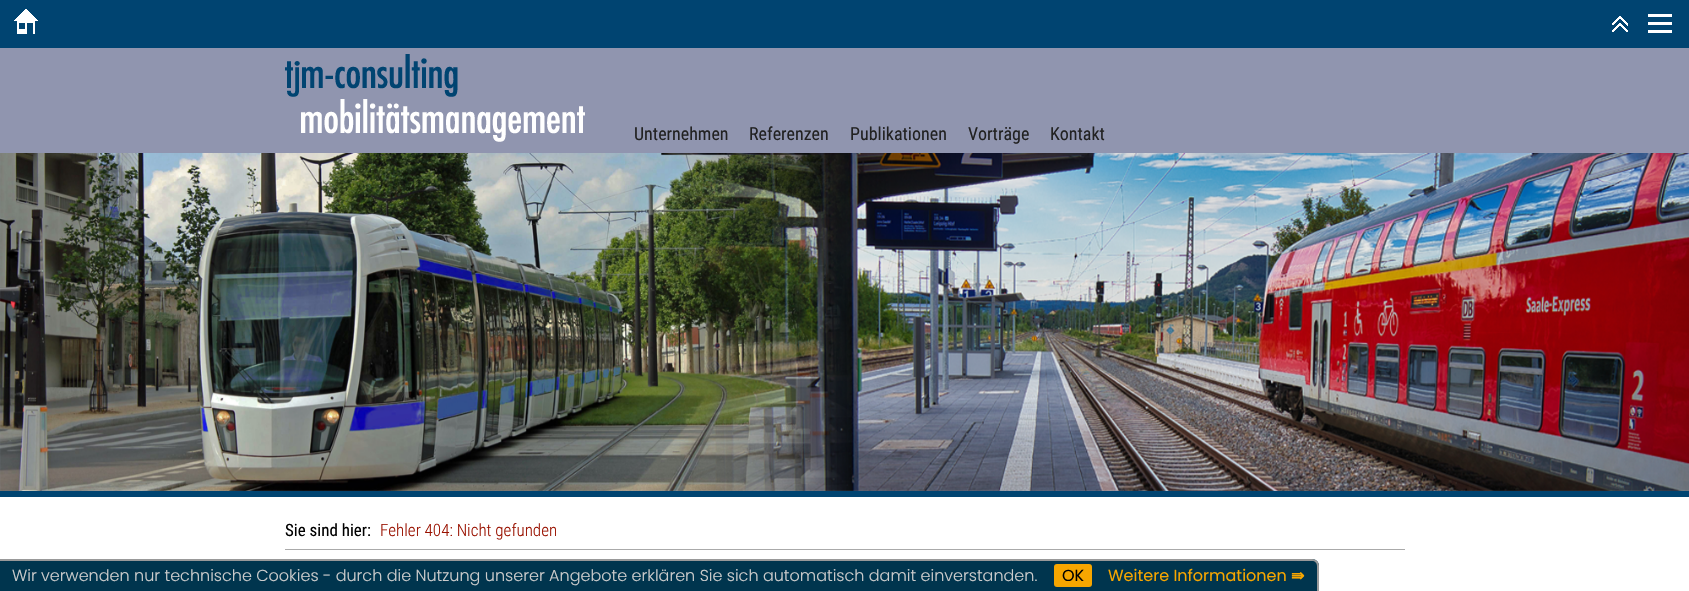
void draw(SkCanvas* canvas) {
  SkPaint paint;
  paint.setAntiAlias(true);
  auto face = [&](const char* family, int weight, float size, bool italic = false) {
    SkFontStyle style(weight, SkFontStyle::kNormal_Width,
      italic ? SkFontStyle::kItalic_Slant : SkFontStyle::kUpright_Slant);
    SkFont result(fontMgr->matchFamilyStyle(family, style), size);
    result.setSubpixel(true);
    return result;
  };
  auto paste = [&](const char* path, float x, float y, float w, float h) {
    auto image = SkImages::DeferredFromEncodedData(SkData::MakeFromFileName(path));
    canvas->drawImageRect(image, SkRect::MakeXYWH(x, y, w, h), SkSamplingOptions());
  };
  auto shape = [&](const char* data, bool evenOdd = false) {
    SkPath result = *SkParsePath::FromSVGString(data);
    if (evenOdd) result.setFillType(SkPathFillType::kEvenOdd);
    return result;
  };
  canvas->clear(0xffffffff);
  paint.setColor(0xff004471);
  canvas->drawRect(SkRect::MakeXYWH(0, 0, 1689, 48), paint);
  paste("img/1.png", 14, 9, 24, 25);
  paste("img/2.png", 1612, 16, 16, 16);
  paste("img/3.png", 1648, 14, 24, 19);
  paint.setColor(0xff9095af);
  canvas->drawRect(SkRect::MakeXYWH(0, 48, 1689, 443), paint);
  paste("img/4.png", 285, 54, 300, 88);
  paste("img/5.png", 0, 153, 1689, 338);
  paint.setColor(0xff004471);
  canvas->drawRect(SkRect::MakeXYWH(0, 491, 1689, 6), paint);
  paint.setColor(0xffaaaaaa);
  canvas->drawRect(SkRect::MakeXYWH(285, 549, 1120, 1), paint);
  paint.setColor(0xff00354e);
  canvas->drawPath(shape("M0 559H1312C1316 559 1319 562 1319 566V591H0Z"), paint);
  paint.setColor(0xff999999);
  canvas->drawPath(shape("M0 559H1312C1316 559 1319 562 1319 566V591H0ZM0 561H1312C1315 561 1317 563 1317 566V591H0Z", true), paint);
  paint.setColor(0xfff7a600);
  canvas->drawRoundRect(SkRect::MakeXYWH(1054, 564, 38, 23), 3, 3, paint);
  auto f0 = face("Roboto Condensed", 400, 18);
  paint.setColor(0xff222222);
  {
    const struct { const char* s; float x, y; } items[] = {
      {"Unternehmen", 634, 140},
      {"Referenzen", 749, 140},
      {"Publikationen", 850, 140},
      {"Vorträge", 968, 140},
      {"Kontakt", 1050, 140},
    };
    for (auto [s, x, y] : items) {
      canvas->drawString(s, x, y, f0, paint);
    }
  }
  auto f1 = face("Roboto Condensed", 400, 17);
  paint.setColor(0xff000000);
  canvas->drawString("Sie sind hier:", 285, 536, f1, paint);
  auto f2 = face("Roboto Condensed", 300, 17);
  paint.setColor(0xff991100);
  canvas->drawString("Fehler 404: Nicht gefunden", 380, 536, f2, paint);
  auto f3 = face("Poppins", 300, 16);
  paint.setColor(0xffcccccc);
  canvas->drawString("Wir verwenden nur technische Cookies - durch die Nutzung unserer Angebote erklären Sie sich automatisch damit einverstanden.", 12, 581, f3, paint);
  auto f4 = face("Poppins", 400, 16);
  paint.setColor(0xff000000);
  canvas->drawString("OK", 1062, 581, f4, paint);
  paint.setColor(0xfff7a600);
  canvas->drawString("Weitere Informationen", 1108, 581, f4, paint);
  auto f5 = face("DejaVu Sans", 700, 16);
  canvas->drawString("⇛", 1291, 581, f5, paint);
}
